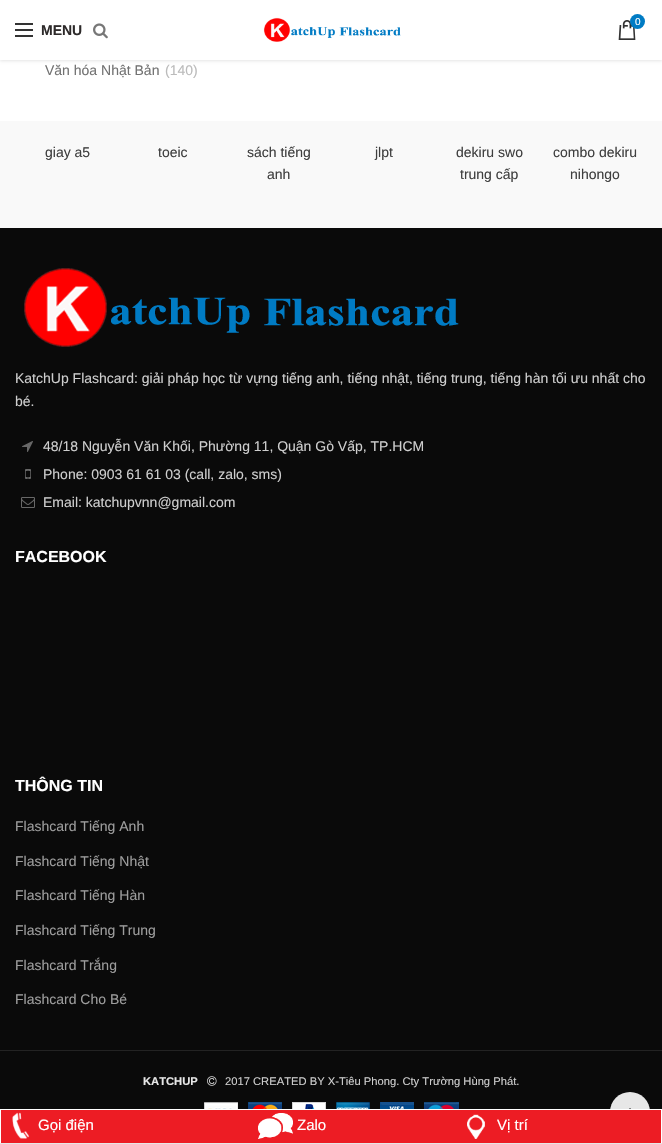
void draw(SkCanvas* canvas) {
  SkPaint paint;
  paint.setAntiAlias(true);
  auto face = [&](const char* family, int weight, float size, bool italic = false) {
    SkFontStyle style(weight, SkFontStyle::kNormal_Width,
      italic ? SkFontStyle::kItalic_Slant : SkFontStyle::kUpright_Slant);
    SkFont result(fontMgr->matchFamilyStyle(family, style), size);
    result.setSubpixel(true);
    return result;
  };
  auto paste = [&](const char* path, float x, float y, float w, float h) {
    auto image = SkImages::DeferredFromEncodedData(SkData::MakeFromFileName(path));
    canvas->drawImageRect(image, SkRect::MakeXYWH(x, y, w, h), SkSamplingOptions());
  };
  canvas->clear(0xffffffff);
  paint.setColor(0x1a000000);
  paint.setMaskFilter(SkMaskFilter::MakeBlur(kNormal_SkBlurStyle, 1.5f));
  canvas->drawRect(SkRect::MakeXYWH(0, 1, 662, 60), paint);
  paint.setMaskFilter(nullptr);
  paint.setColor(0xffffffff);
  canvas->drawRect(SkRect::MakeXYWH(0, 0, 662, 60), paint);
  paste("img/1.png", 263, 17, 138, 25);
  paste("img/2.png", 618, 20, 18, 20);
  paint.setColor(0xff007bc4);
  canvas->drawCircle(637.5f, 21.5f, 7.5f, paint);
  {
    const struct { float x, y, w, h; SkColor color; } items[] = {
      {15, 29, 18, 2, 0xff333333},
      {15, 23, 18, 2, 0xff333333},
      {15, 35, 18, 2, 0xff333333},
    };
    for (auto [x, y, w, h, color] : items) {
      paint.setColor(color);
      canvas->drawRect(SkRect::MakeXYWH(x, y, w, h), paint);
    }
  }
  paste("img/3.png", 93, 23, 15, 16);
  paint.setColor(0xfff9f9f9);
  canvas->drawRect(SkRect::MakeXYWH(0, 121, 662, 107), paint);
  paint.setColor(0xff0a0a0a);
  canvas->drawRect(SkRect::MakeXYWH(0, 228, 662, 881), paint);
  paste("img/4.png", 24, 268, 435, 79);
  paste("img/5.png", 22, 441, 11, 11);
  paste("img/6.png", 25, 469, 6, 10);
  paste("img/7.png", 21, 497, 14, 11);
  paint.setColor(0xff232323);
  canvas->drawRect(SkRect::MakeXYWH(0, 1050, 662, 1), paint);
  paste("img/8.png", 207, 1076, 10, 10);
  paste("img/9.png", 204, 1102, 255, 7);
  paint.setColor(0xffe7e7e7);
  canvas->drawCircle(630, 1112, 20, paint);
  paint.setColor(0xffed1c24);
  canvas->drawRect(SkRect::MakeXYWH(1, 1110, 660, 33), paint);
  paint.setColor(0xffffffff);
  canvas->drawRect(SkRect::MakeXYWH(610, 1109, 40, 1), paint);
  paste("img/10.png", 12, 1112, 18, 27);
  paste("img/11.png", 258, 1113, 35, 26);
  paint.setColor(0xffe6e6e6);
  canvas->drawRect(SkRect::MakeXYWH(0, 1143, 662, 1), paint);
  paste("img/12.png", 467, 1114, 18, 25);
  paste("img/13.png", 629, 1108, 2, 1);
  auto f0 = face("Liberation Sans", 400, 10);
  paint.setColor(0xffffffff);
  canvas->drawString("0", 635, 25, f0, paint);
  auto f1 = face("Liberation Sans", 700, 14);
  paint.setColor(0xff2d2a2a);
  canvas->drawString("MENU", 41, 35, f1, paint);
  auto f2 = face("Liberation Sans", 400, 14);
  paint.setColor(0xff727272);
  canvas->drawString("Văn hóa Nhật Bản", 45, 75, f2, paint);
  paint.setColor(0xffbbbbbb);
  canvas->drawString("(140)", 165, 75, f2, paint);
  paint.setColor(0xff3f3f3f);
  {
    const struct { const char* s; float x, y; } items[] = {
      {"giay a5", 45, 157},
      {"toeic", 158, 157},
      {"sách tiếng", 247, 157},
      {"anh", 267, 179},
      {"jlpt", 375, 157},
      {"dekiru swo", 456, 157},
      {"trung cấp", 460, 179},
      {"combo dekiru", 553, 157},
      {"nihongo", 570, 179},
    };
    for (auto [s, x, y] : items) {
      canvas->drawString(s, x, y, f2, paint);
    }
  }
  paint.setColor(0xffcecece);
  {
    const struct { const char* s; float x, y; } items[] = {
      {"KatchUp Flashcard: giải pháp học từ vựng tiếng anh, tiếng nhật, tiếng trung, tiếng hàn tối ưu nhất cho", 15, 383},
      {"bé.", 15, 406},
      {"48/18 Nguyễn Văn Khối, Phường 11, Quận Gò Vấp, TP.HCM", 43, 451},
      {"Phone: 0903 61 61 03 (call, zalo, sms)", 43, 479},
      {"Email: katchupvnn@gmail.com", 43, 507},
    };
    for (auto [s, x, y] : items) {
      canvas->drawString(s, x, y, f2, paint);
    }
  }
  auto f3 = face("Liberation Sans", 700, 16);
  paint.setColor(0xffffffff);
  canvas->drawString("FACEBOOK", 15, 562, f3, paint);
  canvas->drawString("THÔNG TIN", 15, 791, f3, paint);
  paint.setColor(0xff9d9d9d);
  {
    const struct { const char* s; float x, y; } items[] = {
      {"Flashcard Tiếng Anh", 15, 831},
      {"Flashcard Tiếng Nhật", 15, 866},
      {"Flashcard Tiếng Hàn", 15, 900},
      {"Flashcard Tiếng Trung", 15, 935},
      {"Flashcard Trắng", 15, 970},
      {"Flashcard Cho Bé", 15, 1004},
    };
    for (auto [s, x, y] : items) {
      canvas->drawString(s, x, y, f2, paint);
    }
  }
  auto f4 = face("Liberation Sans", 700, 11.2f);
  paint.setColor(0xffe7e7e7);
  canvas->drawString("KATCHUP", 143, 1085, f4, paint);
  auto f5 = face("Liberation Sans", 400, 11.2f);
  paint.setColor(0xffcecece);
  canvas->drawString("2017 CREATED BY X-Tiêu Phong. Cty Trường Hùng Phát.", 225, 1085, f5, paint);
  auto f6 = face("Liberation Sans", 400, 15);
  paint.setColor(0xffffffff);
  {
    const struct { const char* s; float x, y; } items[] = {
      {"Gọi điện", 38, 1130},
      {"Zalo", 297, 1130},
      {"Vị trí", 497, 1130},
    };
    for (auto [s, x, y] : items) {
      canvas->drawString(s, x, y, f6, paint);
    }
  }
}
